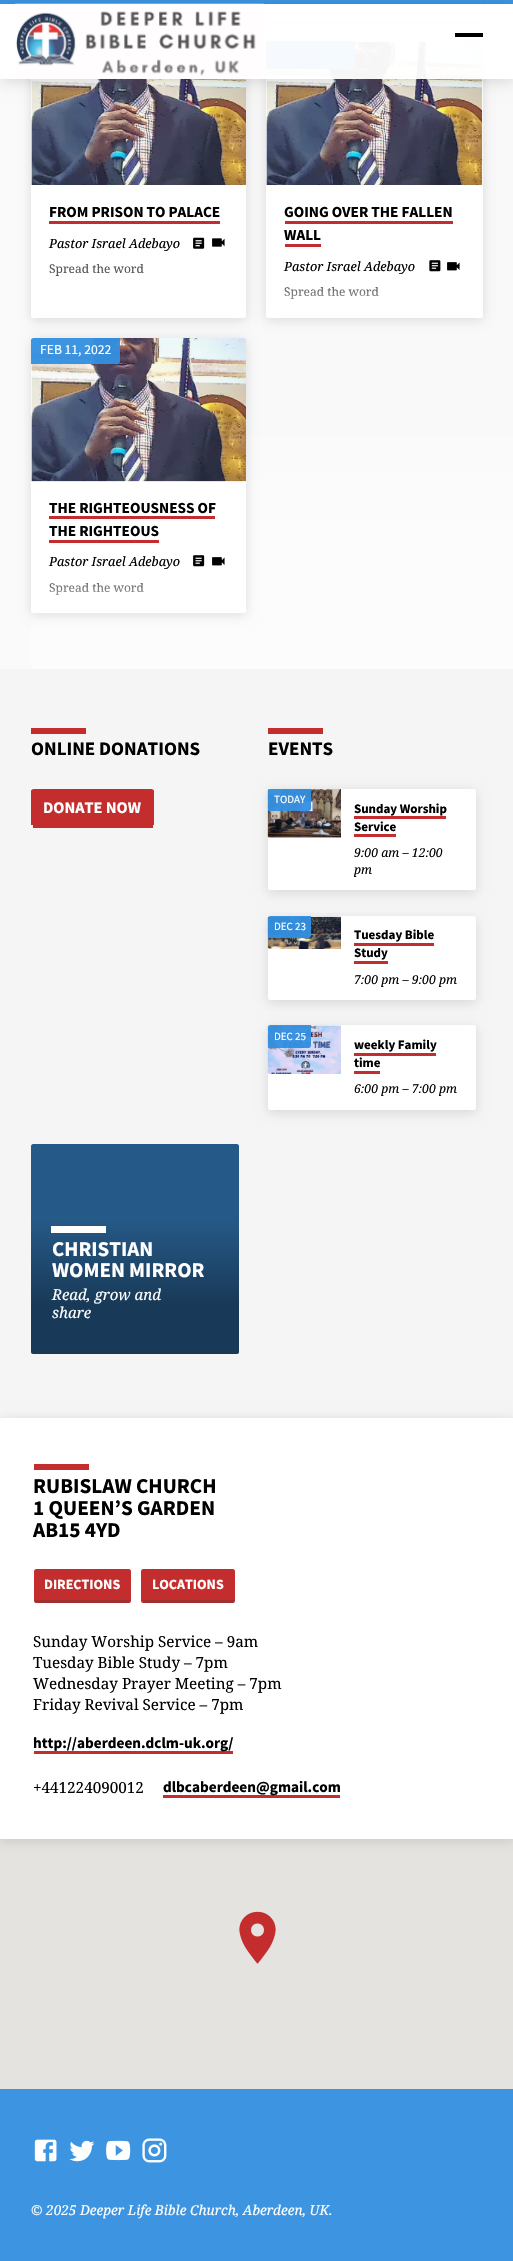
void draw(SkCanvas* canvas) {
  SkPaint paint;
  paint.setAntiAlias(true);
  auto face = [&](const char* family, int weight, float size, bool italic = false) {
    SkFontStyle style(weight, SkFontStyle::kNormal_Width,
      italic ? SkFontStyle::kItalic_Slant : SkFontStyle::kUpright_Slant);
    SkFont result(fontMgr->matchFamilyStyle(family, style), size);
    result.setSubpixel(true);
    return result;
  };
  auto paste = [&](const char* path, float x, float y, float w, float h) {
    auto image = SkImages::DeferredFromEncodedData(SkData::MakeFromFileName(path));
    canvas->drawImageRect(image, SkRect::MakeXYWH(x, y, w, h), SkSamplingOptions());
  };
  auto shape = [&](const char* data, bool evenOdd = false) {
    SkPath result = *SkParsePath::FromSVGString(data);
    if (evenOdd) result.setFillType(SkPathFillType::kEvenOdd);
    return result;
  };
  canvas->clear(0xffffffff);
  paint.setColor(0xfffafafa);
  canvas->drawRect(SkRect::MakeXYWH(0, 0, 31, 669), paint);
  {
    const SkColor colors[] = {0xfffcfcfc, 0xfff9f9f9};
    const float stops[] = {0.13f, 0.26f};
    const SkPoint ends[] = {{288, 669}, {288, -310}};
    paint.setShader(SkGradientShader::MakeLinear(ends, colors, stops, 2, SkTileMode::kClamp));
    paint.setAlpha(255);
  }
  canvas->drawRect(SkRect::MakeXYWH(31, 0, 482, 669), paint);
  paint.setShader(nullptr);
  paint.setColor(0x1f000000);
  paint.setMaskFilter(SkMaskFilter::MakeBlur(kNormal_SkBlurStyle, 6));
  canvas->drawRoundRect(SkRect::MakeXYWH(31, -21, 215, 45), 2.5f, 2.5f, paint);
  paint.setMaskFilter(nullptr);
  paint.setColor(0xffffffff);
  canvas->drawRect(SkRect::MakeXYWH(31, 0, 215, 4), paint);
  paint.setColor(0x1f000000);
  paint.setMaskFilter(SkMaskFilter::MakeBlur(kNormal_SkBlurStyle, 6));
  canvas->drawRoundRect(SkRect::MakeXYWH(266, -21, 217, 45), 2.5f, 2.5f, paint);
  paint.setMaskFilter(nullptr);
  paint.setColor(0xffffffff);
  canvas->drawRoundRect(SkRect::MakeXYWH(266, -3, 217, 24), 2.5f, 2.5f, paint);
  {
    const SkColor colors[] = {0x00ffffff, 0xe6ffffff};
    const float stops[] = {0, 1};
    const SkPoint ends[] = {{374, -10}, {374, 21}};
    paint.setShader(SkGradientShader::MakeLinear(ends, colors, stops, 2, SkTileMode::kClamp));
    paint.setAlpha(255);
  }
  canvas->drawPath(shape("M266-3H483V18.5C483 20 482 21 480.5 21H268.5C267 21 266 20 266 18.5Z"), paint);
  paint.setShader(nullptr);
  paint.setColor(0xf2338fe0);
  canvas->drawRect(SkRect::MakeXYWH(0, 0, 513, 4), paint);
  paint.setColor(0x1f000000);
  paint.setMaskFilter(SkMaskFilter::MakeBlur(kNormal_SkBlurStyle, 6));
  canvas->drawRoundRect(SkRect::MakeXYWH(31, 44, 215, 276), 2.5f, 2.5f, paint);
  paint.setMaskFilter(nullptr);
  paint.setColor(0xffffffff);
  canvas->drawRoundRect(SkRect::MakeXYWH(31, 41, 215, 277), 2.5f, 2.5f, paint);
  paste("img/2.png", 31, 78, 215, 107);
  paint.setColor(0x1f000000);
  paint.setMaskFilter(SkMaskFilter::MakeBlur(kNormal_SkBlurStyle, 6));
  canvas->drawRoundRect(SkRect::MakeXYWH(266, 44, 217, 276), 2.5f, 2.5f, paint);
  paint.setMaskFilter(nullptr);
  paint.setColor(0xffffffff);
  canvas->drawRoundRect(SkRect::MakeXYWH(266, 41, 217, 277), 2.5f, 2.5f, paint);
  paste("img/5.png", 266, 41, 217, 144);
  paint.setColor(0xf2338fe0);
  canvas->drawPath(shape("M268.5 41H355V66.5C355 68 354 69 352.5 69H266V43.5C266 42 267 41 268.5 41Z"), paint);
  canvas->save();
  canvas->clipPath(shape("M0 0H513V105H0ZM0 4H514V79H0Z", true), true);
  paint.setColor(0x24000000);
  paint.setMaskFilter(SkMaskFilter::MakeBlur(kNormal_SkBlurStyle, 7.5f));
  canvas->drawRect(SkRect::MakeXYWH(0, 6, 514, 75), paint);
  paint.setMaskFilter(nullptr);
  canvas->restore();
  paint.setColor(0xf2ffffff);
  canvas->drawRect(SkRect::MakeXYWH(0, 4, 513, 75), paint);
  paste("img/1.png", 15, 3, 249, 76);
  paint.setColor(0xff000000);
  canvas->drawRect(SkRect::MakeXYWH(455, 33, 28, 4), paint);
  paint.setColor(0xffc42d2d);
  canvas->drawRect(SkRect::MakeXYWH(49, 221, 171, 3), paint);
  paste("img/3.png", 193, 237, 12, 12);
  paste("img/4.png", 212, 238, 13, 9);
  {
    const SkColor colors[] = {0x00ffffff, 0xe6ffffff};
    const float stops[] = {0, 1};
    const SkPoint ends[] = {{139, 286}, {139, 318}};
    paint.setShader(SkGradientShader::MakeLinear(ends, colors, stops, 2, SkTileMode::kClamp));
    paint.setAlpha(255);
  }
  canvas->drawPath(shape("M31 286H246V315.5C246 317 245 318 243.5 318H33.5C32 318 31 317 31 315.5Z"), paint);
  paint.setShader(nullptr);
  paint.setColor(0xffc42d2d);
  canvas->drawRect(SkRect::MakeXYWH(285, 221, 168, 3), paint);
  canvas->drawRect(SkRect::MakeXYWH(285, 244, 36, 3), paint);
  paste("img/6.png", 429, 260, 12, 12);
  paste("img/7.png", 447, 262, 13, 9);
  paint.setColor(0x1f000000);
  paint.setMaskFilter(SkMaskFilter::MakeBlur(kNormal_SkBlurStyle, 6));
  canvas->drawRoundRect(SkRect::MakeXYWH(31, 340, 215, 275), 2.5f, 2.5f, paint);
  paint.setMaskFilter(nullptr);
  paint.setColor(0xffffffff);
  canvas->drawRoundRect(SkRect::MakeXYWH(31, 338, 215, 275), 2.5f, 2.5f, paint);
  paste("img/8.png", 31, 338, 215, 144);
  paint.setColor(0xf2338fe0);
  canvas->drawPath(shape("M33.5 338H120V361.5C120 363 119 364 117.5 364H31V340.5C31 339 32 338 33.5 338Z"), paint);
  paint.setColor(0xffc42d2d);
  canvas->drawRect(SkRect::MakeXYWH(49, 516, 166, 3), paint);
  canvas->drawRect(SkRect::MakeXYWH(49, 540, 110, 3), paint);
  paste("img/9.png", 193, 555, 12, 12);
  paste("img/7.png", 212, 557, 13, 9);
  paint.setColor(0xfff5f5f5);
  canvas->drawRect(SkRect::MakeXYWH(0, 669, 513, 749), paint);
  paint.setColor(0xffc42d2d);
  canvas->drawRect(SkRect::MakeXYWH(31, 728, 55, 6), paint);
  canvas->drawPath(shape("M34 789H151C153 789 154 790 154 791V825H31V791C31 790 32 789 34 789Z"), paint);
  canvas->drawRect(SkRect::MakeXYWH(33, 825, 120, 3), paint);
  canvas->drawRect(SkRect::MakeXYWH(268, 728, 55, 6), paint);
  paint.setColor(0x1f000000);
  paint.setMaskFilter(SkMaskFilter::MakeBlur(kNormal_SkBlurStyle, 6));
  canvas->drawRoundRect(SkRect::MakeXYWH(268, 791, 208, 102), 2.5f, 2.5f, paint);
  paint.setMaskFilter(nullptr);
  paint.setColor(0xffffffff);
  canvas->drawRoundRect(SkRect::MakeXYWH(268, 789, 208, 101), 2.5f, 2.5f, paint);
  paste("img/10.png", 267, 789, 74, 49);
  paint.setColor(0xf2338fe0);
  canvas->drawPath(shape("M270.5 789H311V808.5C311 810 310 811 308.5 811H268V791.5C268 790 269 789 270.5 789Z"), paint);
  paint.setColor(0xffc42d2d);
  canvas->drawRect(SkRect::MakeXYWH(354, 816, 92, 3), paint);
  canvas->drawRect(SkRect::MakeXYWH(354, 834, 42, 3), paint);
  paint.setColor(0x1f000000);
  paint.setMaskFilter(SkMaskFilter::MakeBlur(kNormal_SkBlurStyle, 6));
  canvas->drawRoundRect(SkRect::MakeXYWH(268, 919, 208, 84), 2.5f, 2.5f, paint);
  paint.setMaskFilter(nullptr);
  paint.setColor(0xffffffff);
  canvas->drawRoundRect(SkRect::MakeXYWH(268, 916, 208, 84), 2.5f, 2.5f, paint);
  paste("img/11.png", 267, 916, 74, 33);
  paint.setColor(0xf2338fe0);
  canvas->drawPath(shape("M270.5 916H311V935.5C311 937 310 938 308.5 938H268V918.5C268 917 269 916 270.5 916Z"), paint);
  paint.setColor(0xffc42d2d);
  canvas->drawRect(SkRect::MakeXYWH(354, 943, 80, 3), paint);
  canvas->drawRect(SkRect::MakeXYWH(354, 961, 34, 3), paint);
  paint.setColor(0x1f000000);
  paint.setMaskFilter(SkMaskFilter::MakeBlur(kNormal_SkBlurStyle, 6));
  canvas->drawRoundRect(SkRect::MakeXYWH(268, 1028, 208, 85), 2.5f, 2.5f, paint);
  paint.setMaskFilter(nullptr);
  paint.setColor(0xffffffff);
  canvas->drawRoundRect(SkRect::MakeXYWH(268, 1025, 208, 85), 2.5f, 2.5f, paint);
  paste("img/12.png", 267, 1025, 74, 49);
  paint.setColor(0xf2338fe0);
  canvas->drawPath(shape("M270.5 1025H311V1045.5C311 1047 310 1048 308.5 1048H268V1027.5C268 1026 269 1025 270.5 1025Z"), paint);
  paint.setColor(0xffc42d2d);
  canvas->drawRect(SkRect::MakeXYWH(354, 1053, 82, 3), paint);
  canvas->drawRect(SkRect::MakeXYWH(354, 1071, 26, 3), paint);
  paint.setColor(0xff3d94e1);
  canvas->drawRoundRect(SkRect::MakeXYWH(31, 1144, 208, 210), 2.5f, 2.5f, paint);
  paint.setColor(0x66000000);
  canvas->drawRoundRect(SkRect::MakeXYWH(31, 1144, 208, 210), 2.5f, 2.5f, paint);
  {
    const SkColor colors[] = {0x00000000, 0x00000000, 0x59000000, 0x59000000};
    const float stops[] = {0, 0.36f, 0.76f, 1};
    const SkPoint ends[] = {{135, 1144}, {135, 1354}};
    paint.setShader(SkGradientShader::MakeLinear(ends, colors, stops, 4, SkTileMode::kClamp));
    paint.setAlpha(255);
  }
  canvas->drawRoundRect(SkRect::MakeXYWH(31, 1144, 208, 210), 2.5f, 2.5f, paint);
  paint.setShader(nullptr);
  paint.setColor(0xffffffff);
  canvas->drawRect(SkRect::MakeXYWH(51, 1226, 55, 7), paint);
  paint.setColor(0xffe5e3df);
  canvas->drawRect(SkRect::MakeXYWH(0, 1839, 513, 250), paint);
  paint.setColor(0x1f000000);
  paint.setMaskFilter(SkMaskFilter::MakeBlur(kNormal_SkBlurStyle, 6));
  canvas->drawRoundRect(SkRect::MakeXYWH(0, 1420, 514, 421), 2.5f, 2.5f, paint);
  paint.setMaskFilter(nullptr);
  paint.setColor(0xffffffff);
  canvas->drawRoundRect(SkRect::MakeXYWH(0, 1418, 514, 421), 2.5f, 2.5f, paint);
  paint.setColor(0xffc42d2d);
  canvas->drawRect(SkRect::MakeXYWH(34, 1464, 55, 6), paint);
  canvas->drawRoundRect(SkRect::MakeXYWH(34, 1569, 97, 34), 2.5f, 2.5f, paint);
  paint.setColor(0x40323232);
  canvas->drawRect(SkRect::MakeXYWH(35, 1600, 95, 3), paint);
  paint.setColor(0xffc42d2d);
  canvas->drawRoundRect(SkRect::MakeXYWH(141, 1569, 94, 34), 2.5f, 2.5f, paint);
  {
    const struct { float x, y, w, h; SkColor color; } items[] = {
      {143, 1600, 91, 3, 0x40323232},
      {34, 1751, 199, 3, 0xffc42d2d},
      {163, 1795, 177, 3, 0xffc42d2d},
    };
    for (auto [x, y, w, h, color] : items) {
      paint.setColor(color);
      canvas->drawRect(SkRect::MakeXYWH(x, y, w, h), paint);
    }
  }
  paste("img/13.png", 239, 1911, 37, 53);
  paint.setColor(0xff3d95e2);
  canvas->drawRect(SkRect::MakeXYWH(0, 2089, 513, 172), paint);
  paste("img/14.png", 34, 2139, 23, 23);
  paste("img/15.png", 69, 2140, 26, 22);
  paste("img/16.png", 106, 2140, 25, 21);
  paste("img/17.png", 142, 2138, 25, 25);
  auto f0 = face("Source Sans Pro", 700, 15.25f);
  paint.setColor(0xff000000);
  canvas->drawString("FROM PRISON TO PALACE", 49, 217, f0, paint);
  auto f1 = face("Noto Serif", 400, 12.75f, true);
  canvas->drawString("Pastor Israel Adebayo", 49, 248, f1, paint);
  auto f2 = face("Noto Serif", 400, 12);
  paint.setColor(0xff555555);
  canvas->drawString("Spread the word", 49, 273, f2, paint);
  paint.setColor(0xff000000);
  canvas->drawString("GOING OVER THE FALLEN", 284, 217, f0, paint);
  canvas->drawString("WALL", 284, 240, f0, paint);
  canvas->drawString("Pastor Israel Adebayo", 284, 271, f1, paint);
  paint.setColor(0xff555555);
  canvas->drawString("Spread the word", 284, 296, f2, paint);
  {
    const SkColor colors[] = {0x00ffffff, 0xe6ffffff};
    const float stops[] = {0, 1};
    const SkPoint ends[] = {{374, 286}, {374, 318}};
    paint.setShader(SkGradientShader::MakeLinear(ends, colors, stops, 2, SkTileMode::kClamp));
    paint.setAlpha(255);
  }
  canvas->drawPath(shape("M266 286H483V315.5C483 317 482 318 480.5 318H268.5C267 318 266 317 266 315.5Z"), paint);
  auto f3 = face("Source Sans Pro", 400, 13.6f);
  paint.setShader(nullptr);
  paint.setColor(0xffffffff);
  canvas->drawString("FEB 11, 2022", 40, 354, f3, paint);
  paint.setColor(0xff000000);
  canvas->drawString("THE RIGHTEOUSNESS OF", 49, 513, f0, paint);
  canvas->drawString("THE RIGHTEOUS", 49, 536, f0, paint);
  canvas->drawString("Pastor Israel Adebayo", 49, 566, f1, paint);
  paint.setColor(0xff555555);
  canvas->drawString("Spread the word", 49, 592, f2, paint);
  {
    const SkColor colors[] = {0x00ffffff, 0xe6ffffff};
    const float stops[] = {0, 1};
    const SkPoint ends[] = {{139, 581}, {139, 613}};
    paint.setShader(SkGradientShader::MakeLinear(ends, colors, stops, 2, SkTileMode::kClamp));
    paint.setAlpha(255);
  }
  canvas->drawPath(shape("M31 581H246V610.5C246 612 245 613 243.5 613H33.5C32 613 31 612 31 610.5Z"), paint);
  auto f4 = face("Source Sans Pro", 700, 19);
  paint.setShader(nullptr);
  paint.setColor(0xff000000);
  canvas->drawString("ONLINE DONATIONS", 31, 755, f4, paint);
  auto f5 = face("Source Sans Pro", 700, 16.25f);
  paint.setColor(0xffffffff);
  canvas->drawString("DONATE NOW", 43, 813, f5, paint);
  paint.setColor(0xff000000);
  canvas->drawString("EVENTS", 268, 755, f4, paint);
  auto f6 = face("Source Sans Pro", 400, 11);
  paint.setColor(0xffffffff);
  canvas->drawString("TODAY", 274, 803, f6, paint);
  auto f7 = face("Source Sans Pro", 700, 13);
  paint.setColor(0xff000000);
  canvas->drawString("Sunday Worship", 354, 813, f7, paint);
  canvas->drawString("Service", 354, 831, f7, paint);
  auto f8 = face("Noto Serif", 400, 12.25f, true);
  canvas->drawString("9:00 am – 12:00", 354, 857, f8, paint);
  canvas->drawString("pm", 354, 874, f8, paint);
  paint.setColor(0xffffffff);
  canvas->drawString("DEC 23", 274, 930, f6, paint);
  paint.setColor(0xff000000);
  canvas->drawString("Tuesday Bible", 354, 939, f7, paint);
  canvas->drawString("Study", 354, 957, f7, paint);
  canvas->drawString("7:00 pm – 9:00 pm", 354, 984, f8, paint);
  paint.setColor(0xffffffff);
  canvas->drawString("DEC 25", 274, 1040, f6, paint);
  paint.setColor(0xff000000);
  canvas->drawString("weekly Family", 354, 1049, f7, paint);
  canvas->drawString("time", 354, 1067, f7, paint);
  canvas->drawString("6:00 pm – 7:00 pm", 354, 1093, f8, paint);
  auto f9 = face("Source Sans Pro", 700, 21);
  paint.setColor(0xffffffff);
  canvas->drawString("CHRISTIAN", 52, 1256, f9, paint);
  canvas->drawString("WOMEN MIRROR", 52, 1277, f9, paint);
  auto f10 = face("Noto Serif", 400, 15, true);
  canvas->drawString("Read, grow and", 52, 1300, f10, paint);
  canvas->drawString("share", 52, 1318, f10, paint);
  auto f11 = face("Source Sans Pro", 700, 21.25f);
  paint.setColor(0xff000000);
  {
    const struct { const char* s; float x, y; } items[] = {
      {"RUBISLAW CHURCH", 33, 1493},
      {"1 QUEEN’S GARDEN", 33, 1515},
      {"AB15 4YD", 33, 1537},
    };
    for (auto [s, x, y] : items) {
      canvas->drawString(s, x, y, f11, paint);
    }
  }
  auto f12 = face("Source Sans Pro", 700, 14);
  paint.setColor(0xffffffff);
  canvas->drawString("DIRECTIONS", 44, 1589, f12, paint);
  canvas->drawString("LOCATIONS", 152, 1589, f12, paint);
  auto f13 = face("Noto Serif", 400, 15.25f);
  paint.setColor(0xff000000);
  {
    const struct { const char* s; float x, y; } items[] = {
      {"Sunday Worship Service – 9am", 33, 1647},
      {"Tuesday Bible Study – 7pm", 33, 1668},
      {"Wednesday Prayer Meeting – 7pm", 33, 1689},
      {"Friday Revival Service – 7pm", 33, 1710},
    };
    for (auto [s, x, y] : items) {
      canvas->drawString(s, x, y, f13, paint);
    }
  }
  canvas->drawString("http://aberdeen.dclm-uk.org/", 33, 1748, f0, paint);
  canvas->drawString("+441224090012", 33, 1793, f13, paint);
  canvas->drawString("dlbcaberdeen@gmail.com", 163, 1792, f0, paint);
  auto f14 = face("Noto Serif", 400, 13.6f, true);
  paint.setColor(0xffffffff);
  canvas->drawString("© 2025 Deeper Life Bible Church, Aberdeen, UK.", 31, 2215, f14, paint);
}
